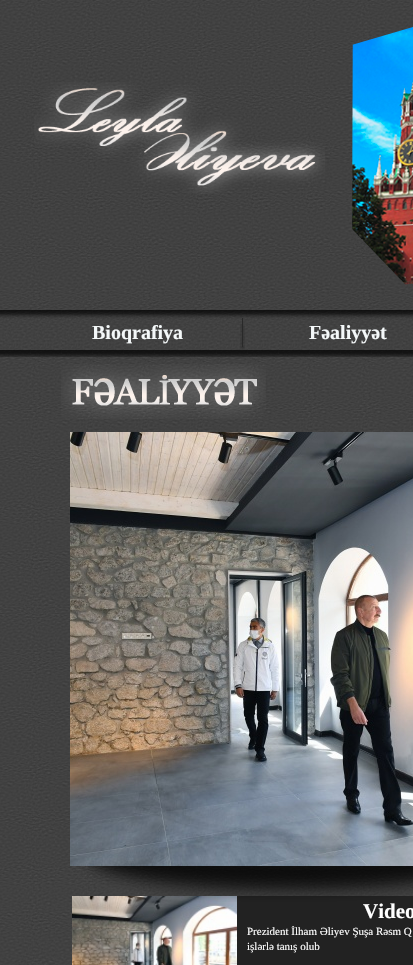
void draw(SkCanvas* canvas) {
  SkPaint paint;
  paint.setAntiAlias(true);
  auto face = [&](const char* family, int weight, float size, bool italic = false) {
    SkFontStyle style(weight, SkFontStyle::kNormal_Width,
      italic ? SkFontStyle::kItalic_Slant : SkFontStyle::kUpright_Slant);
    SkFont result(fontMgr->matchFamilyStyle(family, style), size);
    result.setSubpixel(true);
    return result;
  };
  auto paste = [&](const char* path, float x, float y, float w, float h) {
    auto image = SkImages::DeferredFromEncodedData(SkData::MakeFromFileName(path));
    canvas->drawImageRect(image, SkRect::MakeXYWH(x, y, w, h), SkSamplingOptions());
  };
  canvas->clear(0xffffffff);
  paste("img/1.png", 0, 0, 413, 965);
  paste("img/2.png", 34, 82, 291, 112);
  paste("img/3.png", 352, 27, 61, 258);
  paste("img/4.png", 0, 310, 413, 47);
  paste("img/5.png", 240, 318, 5, 32);
  paste("img/6.png", 61, 364, 205, 55);
  paint.setColor(0xff222222);
  canvas->drawRect(SkRect::MakeXYWH(237, 896, 176, 69), paint);
  paste("img/9.png", 72, 896, 165, 69);
  paste("img/8.png", 73, 834, 340, 68);
  paste("img/7.png", 70, 432, 343, 434);
  auto f0 = face("Liberation Serif", 700, 20);
  paint.setColor(0xfff4f8f9);
  canvas->drawString("Bioqrafiya", 92, 339, f0, paint);
  canvas->drawString("Fəaliyyət", 309, 339, f0, paint);
  auto f1 = face("Liberation Serif", 700, 21);
  paint.setColor(0xffffffff);
  canvas->drawString("Video", 363, 918, f1, paint);
  auto f2 = face("Liberation Serif", 400, 11);
  canvas->drawString("Prezident İlham Əliyev Şuşa Rəsm Q", 247, 935, f2, paint);
  canvas->drawString("işlərlə tanış olub", 247, 950, f2, paint);
}
